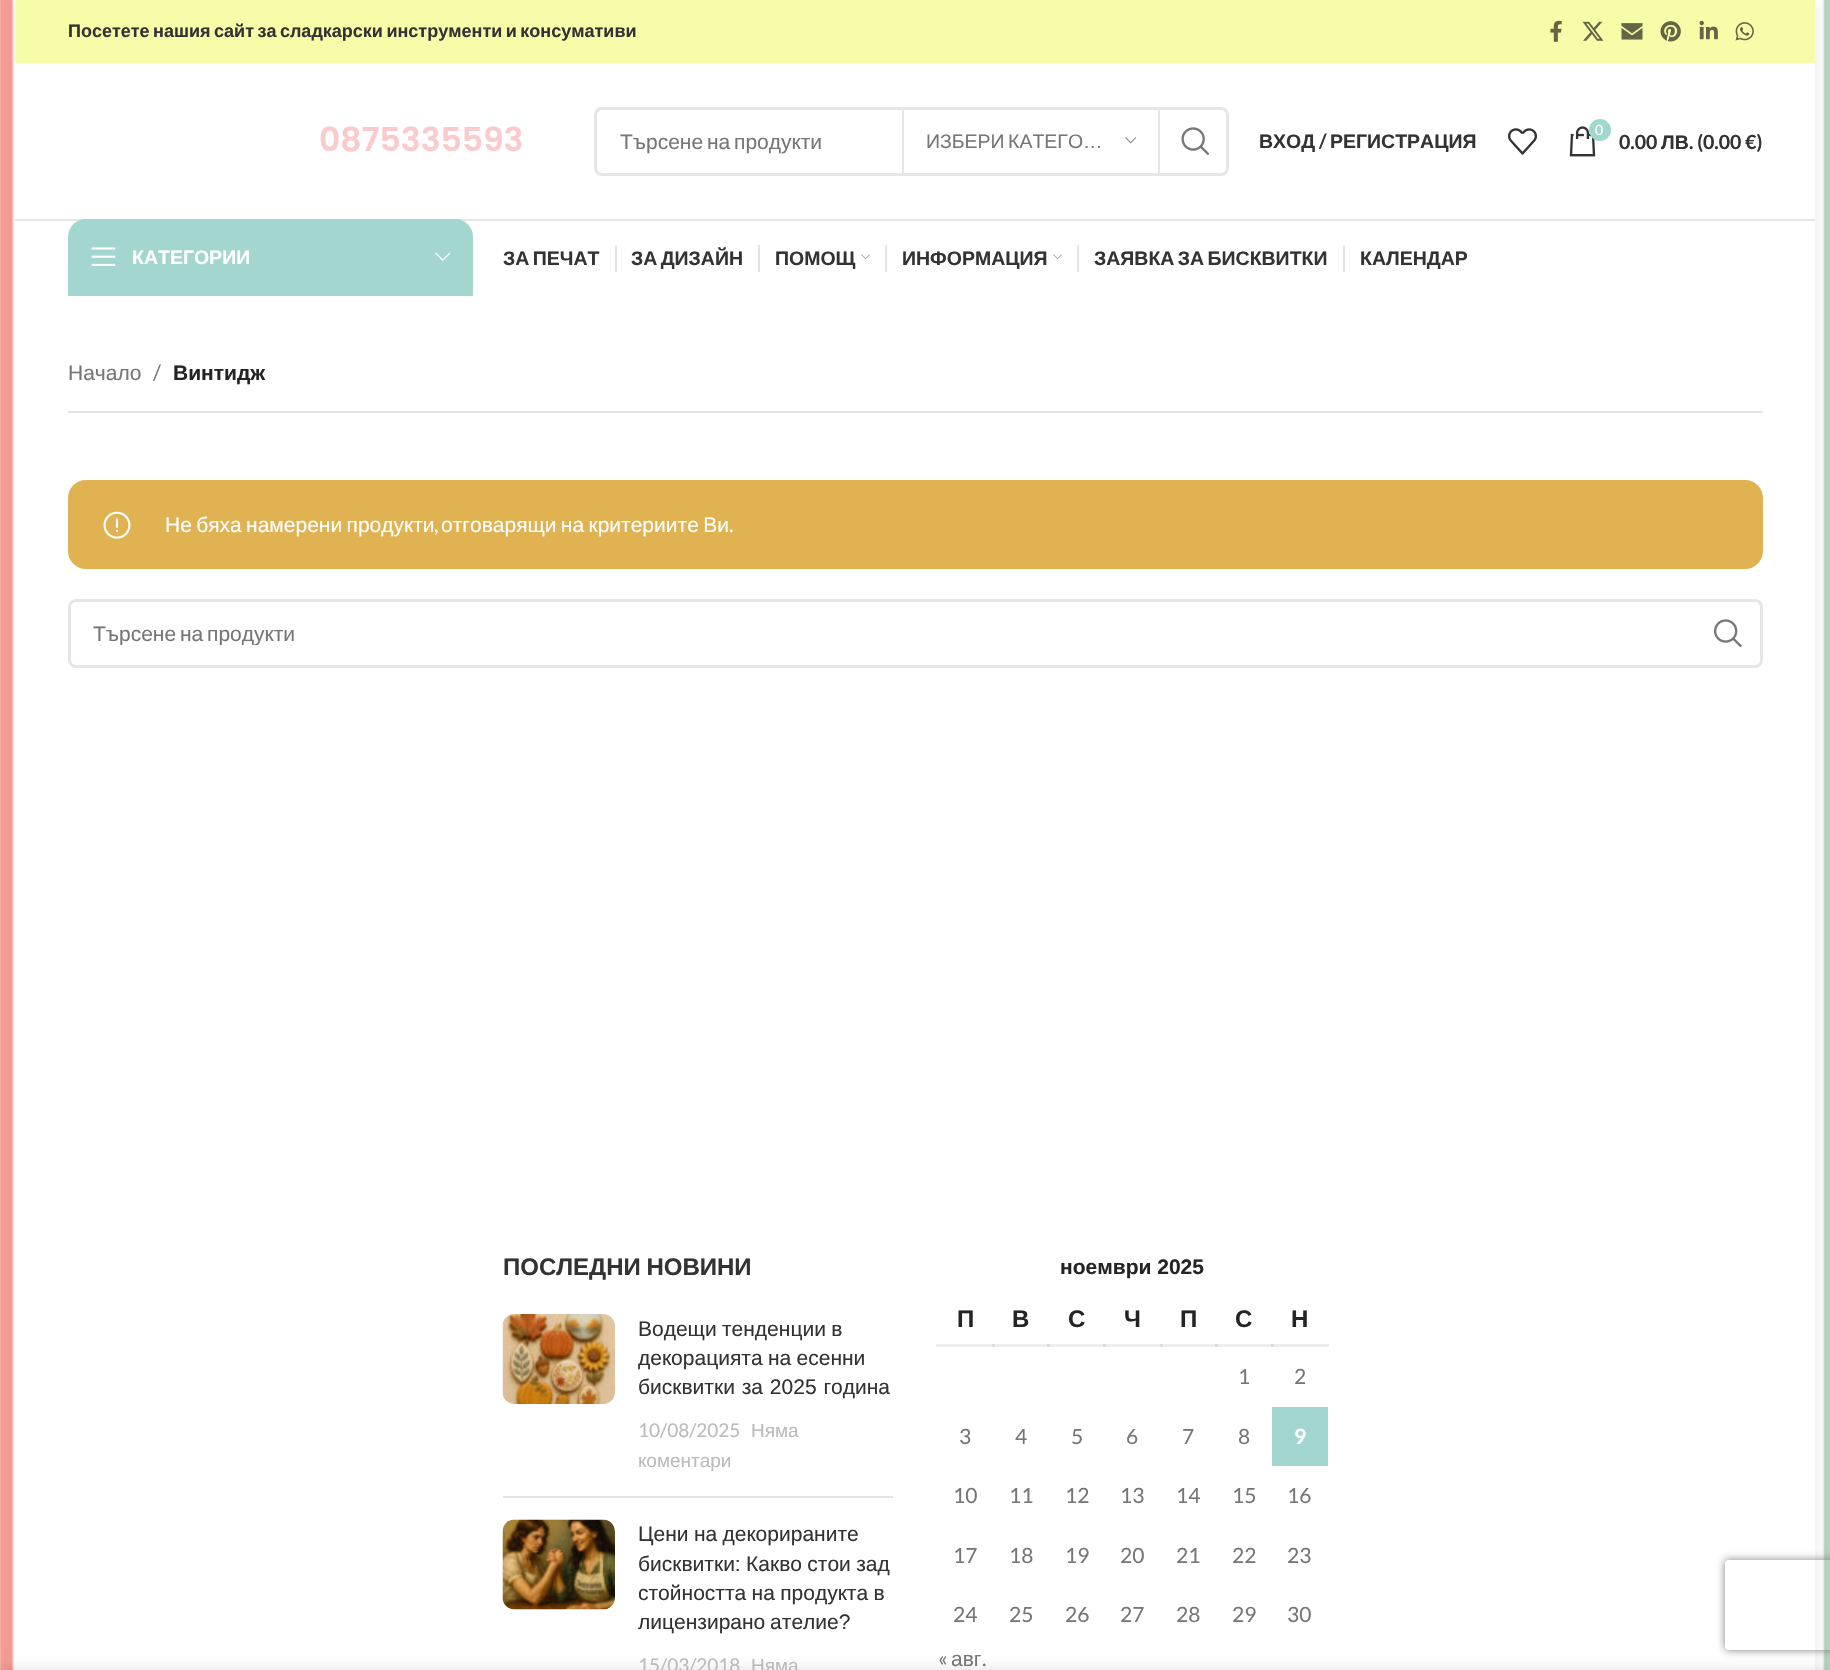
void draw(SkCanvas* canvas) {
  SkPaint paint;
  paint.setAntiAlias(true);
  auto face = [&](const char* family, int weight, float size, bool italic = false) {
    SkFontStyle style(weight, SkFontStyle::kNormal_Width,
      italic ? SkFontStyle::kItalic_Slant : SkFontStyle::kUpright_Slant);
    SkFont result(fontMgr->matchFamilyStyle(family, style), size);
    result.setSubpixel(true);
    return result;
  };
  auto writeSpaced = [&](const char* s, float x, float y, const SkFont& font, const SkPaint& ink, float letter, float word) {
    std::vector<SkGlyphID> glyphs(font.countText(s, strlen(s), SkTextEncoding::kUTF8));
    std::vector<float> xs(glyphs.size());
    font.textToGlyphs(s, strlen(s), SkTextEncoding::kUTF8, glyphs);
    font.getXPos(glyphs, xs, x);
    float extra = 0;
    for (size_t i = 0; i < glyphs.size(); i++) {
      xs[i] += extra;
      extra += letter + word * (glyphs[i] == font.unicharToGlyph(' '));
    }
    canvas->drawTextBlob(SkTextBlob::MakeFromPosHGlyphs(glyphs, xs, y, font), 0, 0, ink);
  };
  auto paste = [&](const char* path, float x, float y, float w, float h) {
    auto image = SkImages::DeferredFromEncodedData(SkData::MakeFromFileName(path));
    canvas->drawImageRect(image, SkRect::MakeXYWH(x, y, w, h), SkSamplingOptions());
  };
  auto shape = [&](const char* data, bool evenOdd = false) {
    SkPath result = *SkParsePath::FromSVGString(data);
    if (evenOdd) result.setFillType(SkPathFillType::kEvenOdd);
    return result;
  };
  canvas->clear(0xffffffff);
  paste("img/1.png", 0, 0, 1830, 1670);
  paint.setColor(0x14000000);
  paint.setMaskFilter(SkMaskFilter::MakeBlur(kNormal_SkBlurStyle, 7));
  canvas->drawRect(SkRect::MakeXYWH(15, 2, 1800, 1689), paint);
  paint.setMaskFilter(nullptr);
  paint.setColor(0xffffffff);
  canvas->drawRect(SkRect::MakeXYWH(15, 63, 1800, 1607), paint);
  paint.setColor(0xfff7fca9);
  canvas->drawRect(SkRect::MakeXYWH(15, 0, 1800, 63), paint);
  paste("img/2.png", 1550, 20, 12, 22);
  paste("img/3.png", 1582, 21, 22, 20);
  paste("img/4.png", 1621, 23, 22, 17);
  paste("img/5.png", 1660, 21, 21, 21);
  paste("img/6.png", 1699, 20, 19, 20);
  paste("img/7.png", 1735, 22, 19, 19);
  paint.setColor(0xffe6e6e6);
  canvas->drawRect(SkRect::MakeXYWH(15, 219, 1800, 2), paint);
  paint.setStroke(true);
  paint.setStrokeWidth(3);
  canvas->drawRoundRect(SkRect::MakeXYWH(595.5f, 108.5f, 632, 66), 6.5f, 6.5f, paint);
  paint.setStroke(false);
  canvas->drawRect(SkRect::MakeXYWH(1158, 110, 2, 63), paint);
  canvas->drawRect(SkRect::MakeXYWH(902, 110, 2, 63), paint);
  paste("img/8.png", 1125, 137, 12, 7);
  paste("img/9.png", 1181, 127, 29, 29);
  paste("img/10.png", 1508, 128, 29, 27);
  paste("img/11.png", 1569, 126, 27, 31);
  paint.setColor(0xffa2d6cf);
  canvas->drawCircle(1600, 130, 11, paint);
  canvas->drawPath(shape("M86 219H455C465 219 473 227 473 237V296H68V237C68 227 76 219 86 219Z"), paint);
  paste("img/12.png", 91, 247, 25, 19);
  paste("img/13.png", 435, 252, 16, 9);
  paint.setColor(0xffe4e4e4);
  canvas->drawRect(SkRect::MakeXYWH(615, 245, 2, 27), paint);
  canvas->drawRect(SkRect::MakeXYWH(758, 245, 2, 27), paint);
  paste("img/14.png", 861, 254, 9, 6);
  canvas->drawRect(SkRect::MakeXYWH(885, 245, 2, 27), paint);
  paste("img/14.png", 1053, 254, 9, 6);
  {
    const struct { float x, y, w, h; SkColor color; } items[] = {
      {1077, 245, 2, 27, 0xffe4e4e4},
      {1343, 245, 2, 27, 0xffe4e4e4},
      {68, 411, 1695, 2, 0xffe4e4e4},
    };
    for (auto [x, y, w, h, color] : items) {
      paint.setColor(color);
      canvas->drawRect(SkRect::MakeXYWH(x, y, w, h), paint);
    }
  }
  paint.setColor(0xffe0b252);
  canvas->drawRoundRect(SkRect::MakeXYWH(68, 480, 1695, 89), 18, 18, paint);
  paste("img/15.png", 103, 511, 28, 28);
  paint.setStroke(true);
  paint.setColor(0xffe6e6e6);
  canvas->drawRoundRect(SkRect::MakeXYWH(69.5f, 600.5f, 1692, 66), 6.5f, 6.5f, paint);
  paste("img/16.png", 1714, 619, 28, 29);
  paint.setStroke(false);
  paint.setColor(0xffe4e4e4);
  canvas->drawRect(SkRect::MakeXYWH(503, 1496, 390, 2), paint);
  paste("img/17.png", 502, 1314, 113, 90);
  paste("img/18.png", 502, 1519, 113, 91);
  {
    const struct { float x, y, w, h; SkColor color; } items[] = {
      {1271, 1344, 58, 3, 0xffececec},
      {1215, 1344, 59, 3, 0x12000000},
      {1160, 1344, 58, 3, 0x12000000},
      {1103, 1344, 60, 3, 0x12000000},
      {1047, 1344, 59, 3, 0x12000000},
      {992, 1344, 58, 3, 0x12000000},
      {936, 1344, 59, 3, 0x12000000},
      {1272, 1407, 56, 59, 0xffa2d6cf},
    };
    for (auto [x, y, w, h, color] : items) {
      paint.setColor(color);
      canvas->drawRect(SkRect::MakeXYWH(x, y, w, h), paint);
    }
  }
  canvas->save();
  canvas->clipPath(shape("M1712 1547H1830V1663H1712ZM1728 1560H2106C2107.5 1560 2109 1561.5 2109 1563V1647C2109 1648.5 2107.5 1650 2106 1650H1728C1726.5 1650 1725 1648.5 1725 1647V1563C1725 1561.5 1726.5 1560 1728 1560Z", true), true);
  paint.setColor(0xff808080);
  paint.setMaskFilter(SkMaskFilter::MakeBlur(kNormal_SkBlurStyle, 4));
  canvas->drawRoundRect(SkRect::MakeXYWH(1725, 1560, 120, 90), 3, 3, paint);
  paint.setMaskFilter(nullptr);
  canvas->restore();
  paint.setColor(0x24000000);
  paint.setMaskFilter(SkMaskFilter::MakeBlur(kNormal_SkBlurStyle, 7));
  canvas->drawRect(SkRect::MakeXYWH(0, 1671, 1830, 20), paint);
  paint.setMaskFilter(nullptr);
  auto f0 = face("Liberation Sans", 700, 18);
  paint.setColor(0xff333333);
  writeSpaced("Посетете нашия сайт за сладкарски инструменти и консумативи", 68, 37, f0, paint, 0, -1.5f);
  auto f1 = face("Poppins", 600, 33);
  paint.setColor(0xfffacbcd);
  canvas->drawString("0875335593", 319, 151, f1, paint);
  auto f2 = face("Liberation Sans", 400, 21);
  paint.setColor(0xff767676);
  writeSpaced("Търсене на продукти", 620, 149, f2, paint, 0, -2);
  auto f3 = face("Liberation Sans", 400, 19.5f);
  writeSpaced("ИЗБЕРИ КАТЕГО…", 926, 148, f3, paint, 0, -2);
  auto f4 = face("Liberation Sans", 700, 19.5f);
  paint.setColor(0xff333333);
  canvas->drawString("ВХОД", 1259, 148, f4, paint);
  auto f5 = face("Lato", 700, 19.5f);
  canvas->drawString("/", 1319, 148, f5, paint);
  canvas->drawString("РЕГИСТРАЦИЯ", 1330, 148, f4, paint);
  auto f6 = face("Lato", 400, 14);
  paint.setColor(0xffffffff);
  canvas->drawString("0", 1595, 135, f6, paint);
  paint.setColor(0xff333333);
  canvas->drawString("0.00", 1619, 149, f5, paint);
  canvas->drawString("ЛВ", 1661, 149, f4, paint);
  canvas->drawString(". (0.00 €)", 1689, 149, f5, paint);
  paint.setColor(0xffffffff);
  canvas->drawString("КАТЕГОРИИ", 132, 264, f4, paint);
  paint.setColor(0xff333333);
  writeSpaced("ЗА ПЕЧАТ", 503, 265, f4, paint, 0, -2);
  writeSpaced("ЗА ДИЗАЙН", 631, 265, f4, paint, 0, -2);
  canvas->drawString("ПОМОЩ", 775, 265, f4, paint);
  canvas->drawString("ИНФОРМАЦИЯ", 902, 265, f4, paint);
  writeSpaced("ЗАЯВКА ЗА БИСКВИТКИ", 1094, 265, f4, paint, 0, -2);
  canvas->drawString("КАЛЕНДАР", 1360, 265, f4, paint);
  paint.setColor(0xff767676);
  canvas->drawString("Начало", 68, 380, f2, paint);
  auto f7 = face("Lato", 400, 21);
  canvas->drawString("/", 153, 380, f7, paint);
  auto f8 = face("Liberation Sans", 700, 21);
  paint.setColor(0xff242424);
  canvas->drawString("Винтидж", 173, 380, f8, paint);
  paint.setColor(0xffffffff);
  writeSpaced("Не бяха намерени продукти", 165, 532, f2, paint, 0, -1.5f);
  canvas->drawString(",", 434, 532, f7, paint);
  writeSpaced("отговарящи на критериите Ви", 441, 532, f2, paint, 0, -1.5f);
  canvas->drawString(".", 729, 532, f7, paint);
  canvas->save();
  canvas->clipRect(SkRect::MakeXYWH(93, 620, 1553, 25));
  paint.setColor(0xff767676);
  writeSpaced("Търсене на продукти", 93, 641, f2, paint, 0, -2);
  canvas->restore();
  auto f9 = face("Liberation Sans", 700, 24);
  paint.setColor(0xff333333);
  writeSpaced("ПОСЛЕДНИ НОВИНИ", 503, 1275, f9, paint, 0, -1);
  writeSpaced("Водещи тенденции в", 638, 1336, f2, paint, 0, -0.5f);
  writeSpaced("декорацията на есенни", 638, 1365, f2, paint, 0, -0.5f);
  writeSpaced("бисквитки за 2025 година", 638, 1394, f2, paint, 0, 1);
  auto f10 = face("Lato", 400, 19);
  paint.setColor(0xffbbbbbb);
  canvas->drawString("10/08/2025", 638, 1437, f10, paint);
  auto f11 = face("Liberation Sans", 400, 19);
  canvas->drawString("Няма", 751, 1437, f11, paint);
  canvas->drawString("коментари", 638, 1467, f11, paint);
  paint.setColor(0xff333333);
  {
    const struct { const char* s; float x, y; } items[] = {
      {"Цени на декорираните", 638, 1541},
      {"бисквитки: Какво стои зад", 638, 1571},
      {"стойността на продукта в", 638, 1600},
    };
    for (auto [s, x, y] : items) {
      writeSpaced(s, x, y, f2, paint, 0, -0.5f);
    }
  }
  writeSpaced("лицензирано ателие?", 638, 1629, f2, paint, 0, -1);
  paint.setColor(0xffbbbbbb);
  canvas->drawString("15/03/2018", 638, 1672, f10, paint);
  canvas->drawString("Няма", 751, 1672, f11, paint);
  paint.setColor(0xff242424);
  canvas->drawString("ноември 2025", 1060, 1274, f8, paint);
  {
    const struct { const char* s; float x, y; } items[] = {
      {"П", 957, 1327},
      {"В", 1012, 1327},
      {"С", 1068, 1327},
      {"Ч", 1124, 1327},
      {"П", 1180, 1327},
      {"С", 1235, 1327},
      {"Н", 1291, 1327},
    };
    for (auto [s, x, y] : items) {
      canvas->drawString(s, x, y, f9, paint);
    }
  }
  paint.setColor(0xff767676);
  {
    const struct { const char* s; float x, y; } items[] = {
      {"1", 1238, 1384},
      {"2", 1294, 1384},
      {"3", 959, 1444},
      {"4", 1015, 1444},
      {"5", 1071, 1444},
      {"6", 1126, 1444},
      {"7", 1182, 1444},
      {"8", 1238, 1444},
    };
    for (auto [s, x, y] : items) {
      canvas->drawString(s, x, y, f7, paint);
    }
  }
  auto f12 = face("Lato", 700, 21);
  paint.setColor(0xffffffff);
  canvas->drawString("9", 1294, 1444, f12, paint);
  paint.setColor(0xff767676);
  {
    const struct { const char* s; float x, y; } items[] = {
      {"10", 953, 1503},
      {"11", 1009, 1503},
      {"12", 1065, 1503},
      {"13", 1120, 1503},
      {"14", 1176, 1503},
      {"15", 1232, 1503},
      {"16", 1287, 1503},
      {"17", 953, 1563},
      {"18", 1009, 1563},
      {"19", 1065, 1563},
      {"20", 1120, 1563},
      {"21", 1176, 1563},
      {"22", 1232, 1563},
      {"23", 1287, 1563},
      {"24", 953, 1622},
      {"25", 1009, 1622},
      {"26", 1065, 1622},
      {"27", 1120, 1622},
      {"28", 1176, 1622},
      {"29", 1232, 1622},
      {"30", 1287, 1622},
      {"«", 938, 1666},
    };
    for (auto [s, x, y] : items) {
      canvas->drawString(s, x, y, f7, paint);
    }
  }
  canvas->drawString("авг", 951, 1666, f2, paint);
  canvas->drawString(".", 982, 1666, f7, paint);
}
